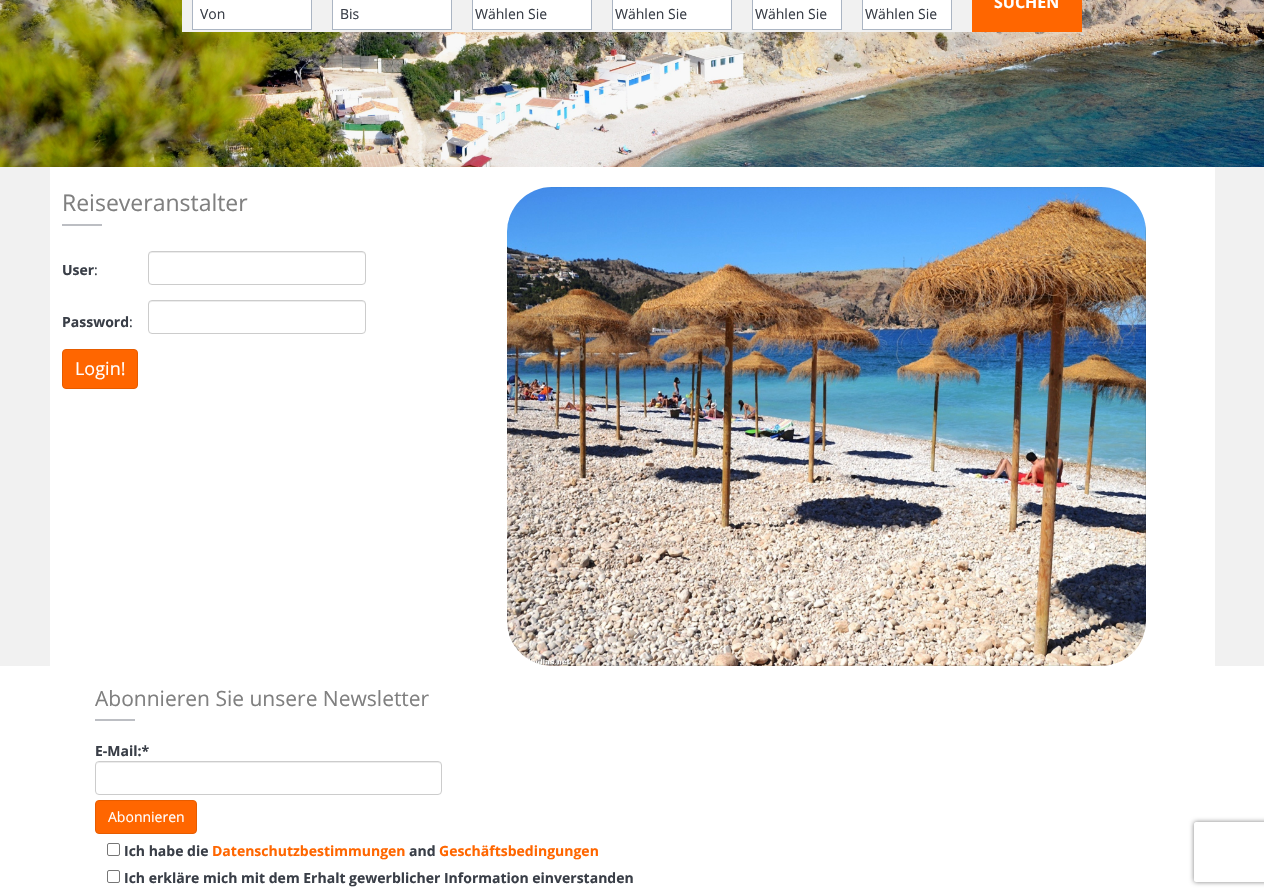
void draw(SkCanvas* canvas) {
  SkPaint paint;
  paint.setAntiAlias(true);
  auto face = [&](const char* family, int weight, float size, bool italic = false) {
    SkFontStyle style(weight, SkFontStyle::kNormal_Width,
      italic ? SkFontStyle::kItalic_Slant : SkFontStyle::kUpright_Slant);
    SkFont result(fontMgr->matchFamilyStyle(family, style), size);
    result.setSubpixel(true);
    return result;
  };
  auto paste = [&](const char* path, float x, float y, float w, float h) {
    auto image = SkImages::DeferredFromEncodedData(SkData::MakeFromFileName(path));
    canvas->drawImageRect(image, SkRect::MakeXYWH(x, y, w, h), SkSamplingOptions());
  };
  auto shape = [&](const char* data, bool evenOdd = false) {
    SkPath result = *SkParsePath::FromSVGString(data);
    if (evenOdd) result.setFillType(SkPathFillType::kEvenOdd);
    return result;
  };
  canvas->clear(0xffffffff);
  paste("img/1.png", 0, 0, 1264, 167);
  paint.setColor(0xfff1f1f1);
  canvas->drawRect(SkRect::MakeXYWH(182, 0, 790, 32), paint);
  paint.setColor(0xffff6600);
  canvas->drawRect(SkRect::MakeXYWH(972, 0, 110, 32), paint);
  paint.setStroke(true);
  paint.setStrokeWidth(1);
  paint.setColor(0xffabb5c3);
  canvas->drawRect(SkRect::MakeXYWH(192.5f, -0.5f, 119, 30), paint);
  paint.setStroke(false);
  paint.setColor(0xffffffff);
  canvas->drawRect(SkRect::MakeXYWH(193, 0, 118, 29), paint);
  paint.setStroke(true);
  paint.setColor(0xffabb5c3);
  canvas->drawRect(SkRect::MakeXYWH(332.5f, -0.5f, 119, 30), paint);
  paint.setStroke(false);
  paint.setColor(0xffffffff);
  canvas->drawRect(SkRect::MakeXYWH(333, 0, 118, 29), paint);
  paint.setStroke(true);
  paint.setColor(0xffabb5c3);
  canvas->drawRect(SkRect::MakeXYWH(472.5f, -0.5f, 119, 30), paint);
  paint.setStroke(false);
  paint.setColor(0xffffffff);
  canvas->drawRect(SkRect::MakeXYWH(473, 0, 118, 29), paint);
  paint.setStroke(true);
  paint.setColor(0xffabb5c3);
  canvas->drawRect(SkRect::MakeXYWH(612.5f, -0.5f, 119, 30), paint);
  paint.setStroke(false);
  paint.setColor(0xffffffff);
  canvas->drawRect(SkRect::MakeXYWH(613, 0, 118, 29), paint);
  paint.setStroke(true);
  paint.setColor(0xffabb5c3);
  canvas->drawRect(SkRect::MakeXYWH(752.5f, -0.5f, 89, 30), paint);
  paint.setStroke(false);
  paint.setColor(0xffffffff);
  canvas->drawRect(SkRect::MakeXYWH(753, 0, 88, 29), paint);
  paint.setStroke(true);
  paint.setColor(0xffabb5c3);
  canvas->drawRect(SkRect::MakeXYWH(862.5f, -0.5f, 89, 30), paint);
  paint.setStroke(false);
  {
    const struct { float x, y, w, h; SkColor color; } items[] = {
      {863, 0, 88, 29, 0xffffffff},
      {0, 167, 1264, 499, 0xfff1f1f1},
      {50, 167, 1165, 499, 0xffffffff},
      {62, 224, 40, 2, 0xffbcbec3},
    };
    for (auto [x, y, w, h, color] : items) {
      paint.setColor(color);
      canvas->drawRect(SkRect::MakeXYWH(x, y, w, h), paint);
    }
  }
  paint.setColor(0xffececec);
  canvas->drawPath(shape("M152 253H362C364 253 365 254 365 256V255C365 253 364 252 362 252H152C150 252 149 253 149 255V256C149 254 150 253 152 253Z"), paint);
  paint.setStroke(true);
  paint.setColor(0xffcccccc);
  canvas->drawRoundRect(SkRect::MakeXYWH(148.5f, 251.5f, 217, 33), 3.5f, 3.5f, paint);
  paint.setStroke(false);
  paint.setColor(0xffececec);
  canvas->drawPath(shape("M152 302H362C364 302 365 303 365 305V304C365 302 364 301 362 301H152C150 301 149 302 149 304V305C149 303 150 302 152 302Z"), paint);
  paint.setStroke(true);
  paint.setColor(0xffcccccc);
  canvas->drawRoundRect(SkRect::MakeXYWH(148.5f, 300.5f, 217, 33), 3.5f, 3.5f, paint);
  paint.setStroke(false);
  paint.setColor(0xffff6600);
  canvas->drawRoundRect(SkRect::MakeXYWH(62.5f, 349.5f, 75, 39), 3.5f, 3.5f, paint);
  paint.setStroke(true);
  paint.setColor(0xffe65c00);
  canvas->drawRoundRect(SkRect::MakeXYWH(62.5f, 349.5f, 75, 39), 3.5f, 3.5f, paint);
  paste("img/2.png", 507, 187, 639, 479);
  paint.setStroke(false);
  paint.setColor(0xffbcbec3);
  canvas->drawRect(SkRect::MakeXYWH(95, 719, 40, 2), paint);
  paint.setColor(0xffececec);
  canvas->drawPath(shape("M99 763H438C440 763 441 764 441 766C441 764 440 762 438 762H99L97 763L96 766C96 764 97 763 99 763Z"), paint);
  paint.setStroke(true);
  paint.setColor(0xffcccccc);
  canvas->drawRoundRect(SkRect::MakeXYWH(95.5f, 761.5f, 346, 33), 3.5f, 3.5f, paint);
  paint.setStroke(false);
  paint.setColor(0xffff6600);
  canvas->drawRoundRect(SkRect::MakeXYWH(95.5f, 800.5f, 101, 33), 3.5f, 3.5f, paint);
  paint.setStroke(true);
  paint.setColor(0xffe65c00);
  canvas->drawRoundRect(SkRect::MakeXYWH(95.5f, 800.5f, 101, 33), 3.5f, 3.5f, paint);
  paint.setColor(0xff767676);
  canvas->drawRoundRect(SkRect::MakeXYWH(107.5f, 843.5f, 12, 12), 1.5f, 1.5f, paint);
  canvas->drawRoundRect(SkRect::MakeXYWH(107.5f, 870.5f, 12, 12), 1.5f, 1.5f, paint);
  canvas->save();
  canvas->clipPath(shape("M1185 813H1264V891H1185ZM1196 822H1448C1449 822 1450 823 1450 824V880C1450 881 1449 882 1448 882H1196C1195 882 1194 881 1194 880V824C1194 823 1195 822 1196 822Z", true), true);
  paint.setStroke(false);
  paint.setColor(0xff808080);
  paint.setMaskFilter(SkMaskFilter::MakeBlur(kNormal_SkBlurStyle, 2.5f));
  canvas->drawRoundRect(SkRect::MakeXYWH(1194, 822, 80, 60), 2, 2, paint);
  paint.setMaskFilter(nullptr);
  canvas->restore();
  auto f0 = face("Open Sans", 700, 16);
  paint.setColor(0xffffffff);
  canvas->drawString("SUCHEN", 994, 8, f0, paint);
  auto f1 = face("Open Sans", 400, 14);
  paint.setColor(0xff393e47);
  {
    const struct { const char* s; float x, y; } items[] = {
      {"Von", 200, 19},
      {"Bis", 340, 19},
      {"Wählen Sie", 475, 19},
      {"Wählen Sie", 615, 19},
      {"Wählen Sie", 755, 19},
      {"Wählen Sie", 865, 19},
    };
    for (auto [s, x, y] : items) {
      canvas->drawString(s, x, y, f1, paint);
    }
  }
  auto f2 = face("Open Sans", 400, 23);
  paint.setColor(0xff808080);
  canvas->drawString("Reiseveranstalter", 62, 211, f2, paint);
  auto f3 = face("Open Sans", 700, 14);
  paint.setColor(0xff393e47);
  canvas->drawString("User", 62, 275, f3, paint);
  canvas->drawString(":", 94, 275, f1, paint);
  canvas->drawString("Password", 62, 327, f3, paint);
  canvas->drawString(":", 129, 327, f1, paint);
  auto f4 = face("Open Sans", 400, 18);
  paint.setColor(0xffffffff);
  canvas->drawString("Login!", 75, 375, f4, paint);
  auto f5 = face("Open Sans", 400, 21);
  paint.setColor(0xff808080);
  canvas->drawString("Abonnieren Sie unsere Newsletter", 95, 706, f5, paint);
  paint.setColor(0xff393e47);
  canvas->drawString("E-Mail:*", 95, 756, f3, paint);
  paint.setColor(0xffffffff);
  canvas->drawString("Abonnieren", 108, 822, f1, paint);
  paint.setColor(0xff393e47);
  canvas->drawString("Ich habe die", 124, 856, f3, paint);
  paint.setColor(0xffff6600);
  canvas->drawString("Datenschutzbestimmungen", 212, 856, f3, paint);
  paint.setColor(0xff393e47);
  canvas->drawString("and", 409, 856, f3, paint);
  paint.setColor(0xffff6600);
  canvas->drawString("Geschäftsbedingungen", 439, 856, f3, paint);
  paint.setColor(0xff393e47);
  canvas->drawString("Ich erkläre mich mit dem Erhalt gewerblicher Information einverstanden", 124, 883, f3, paint);
}
